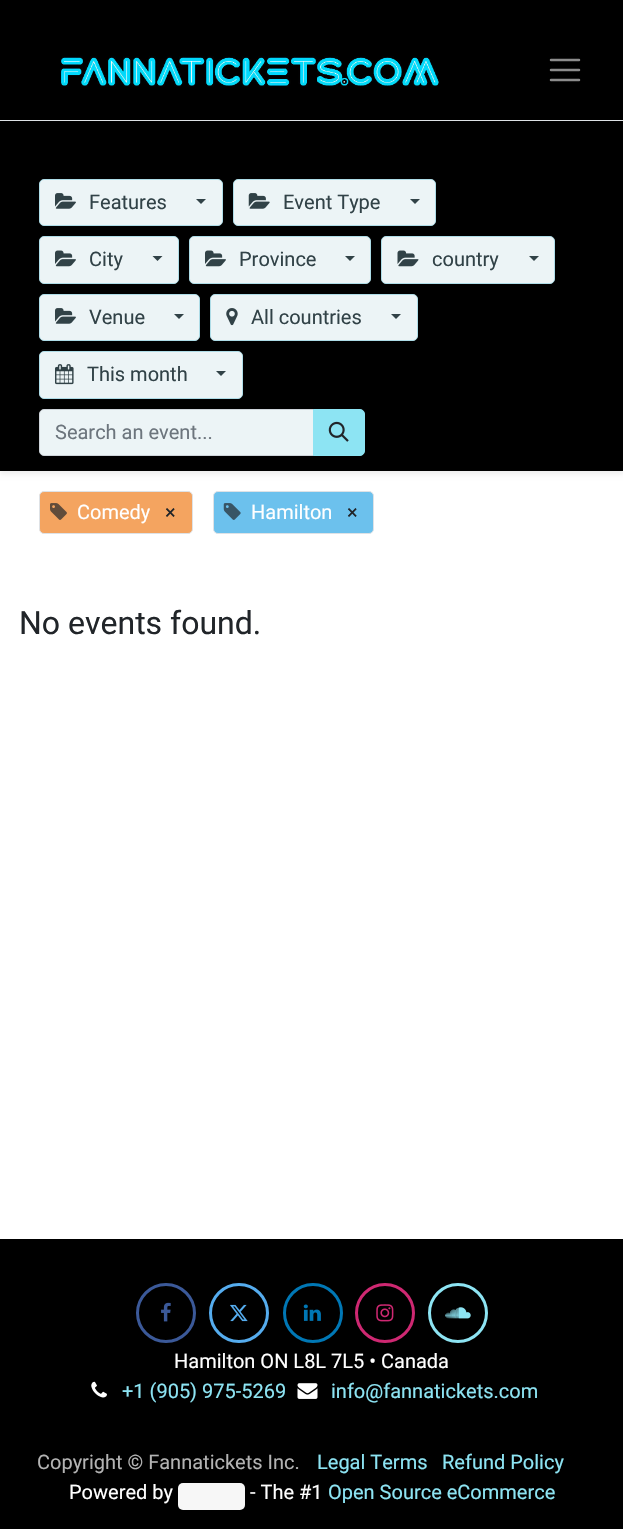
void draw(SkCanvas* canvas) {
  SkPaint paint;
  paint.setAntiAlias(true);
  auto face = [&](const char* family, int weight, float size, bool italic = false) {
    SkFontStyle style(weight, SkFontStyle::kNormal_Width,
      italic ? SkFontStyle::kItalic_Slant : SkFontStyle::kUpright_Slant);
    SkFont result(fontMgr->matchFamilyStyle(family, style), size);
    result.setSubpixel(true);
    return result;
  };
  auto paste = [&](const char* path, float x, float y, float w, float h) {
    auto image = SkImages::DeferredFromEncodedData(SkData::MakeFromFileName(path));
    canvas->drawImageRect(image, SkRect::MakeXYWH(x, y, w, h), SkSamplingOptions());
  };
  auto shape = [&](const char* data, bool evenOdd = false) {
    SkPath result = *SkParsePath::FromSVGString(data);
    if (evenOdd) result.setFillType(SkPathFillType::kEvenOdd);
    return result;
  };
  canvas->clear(0xffffffff);
  paint.setColor(0x12000000);
  paint.setMaskFilter(SkMaskFilter::MakeBlur(kNormal_SkBlurStyle, 2.5f));
  canvas->drawRect(SkRect::MakeXYWH(0, 123, 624, 351), paint);
  paint.setMaskFilter(nullptr);
  paint.setColor(0xff000000);
  canvas->drawRect(SkRect::MakeXYWH(0, 0, 623, 120), paint);
  paste("img/1.png", 60, 56, 380, 31);
  paint.setStroke(true);
  paint.setStrokeWidth(2.5f);
  paint.setStrokeCap(SkPaint::kRound_Cap);
  paint.setColor(0xff8c8c8c);
  canvas->drawPath(shape("M551 60H579M551 70H579M551 80H579"), paint);
  paint.setStroke(false);
  paint.setColor(0xff000000);
  canvas->drawRect(SkRect::MakeXYWH(0, 121, 623, 350), paint);
  paint.setColor(0xffdee2e6);
  canvas->drawRect(SkRect::MakeXYWH(0, 120, 623, 1), paint);
  paint.setColor(0xffecf4f6);
  canvas->drawRoundRect(SkRect::MakeXYWH(39.5f, 179.5f, 183, 46), 4.5f, 4.5f, paint);
  paint.setStroke(true);
  paint.setStrokeWidth(1);
  paint.setStrokeCap(SkPaint::kButt_Cap);
  paint.setColor(0xffaedce7);
  canvas->drawRoundRect(SkRect::MakeXYWH(39.5f, 179.5f, 183, 46), 4.5f, 4.5f, paint);
  paste("img/2.png", 55, 193, 21, 16);
  paint.setStroke(false);
  paint.setColor(0xff314247);
  canvas->drawPath(shape("M196 199H206L201 204Z"), paint);
  paint.setColor(0xffecf4f6);
  canvas->drawRoundRect(SkRect::MakeXYWH(233.5f, 179.5f, 202, 46), 4.5f, 4.5f, paint);
  paint.setStroke(true);
  paint.setColor(0xffaedce7);
  canvas->drawRoundRect(SkRect::MakeXYWH(233.5f, 179.5f, 202, 46), 4.5f, 4.5f, paint);
  paste("img/3.png", 248, 193, 22, 16);
  paint.setStroke(false);
  paint.setColor(0xff314247);
  canvas->drawPath(shape("M410 199H420L415 204Z"), paint);
  paint.setColor(0xffecf4f6);
  canvas->drawRoundRect(SkRect::MakeXYWH(39.5f, 236.5f, 139, 47), 4.5f, 4.5f, paint);
  paint.setStroke(true);
  paint.setColor(0xffaedce7);
  canvas->drawRoundRect(SkRect::MakeXYWH(39.5f, 236.5f, 139, 47), 4.5f, 4.5f, paint);
  paste("img/4.png", 55, 250, 21, 17);
  paint.setStroke(false);
  paint.setColor(0xff314247);
  canvas->drawPath(shape("M152.5 256H162.5L157.5 261Z"), paint);
  paint.setColor(0xffecf4f6);
  canvas->drawRoundRect(SkRect::MakeXYWH(189.5f, 236.5f, 181, 47), 4.5f, 4.5f, paint);
  paint.setStroke(true);
  paint.setColor(0xffaedce7);
  canvas->drawRoundRect(SkRect::MakeXYWH(189.5f, 236.5f, 181, 47), 4.5f, 4.5f, paint);
  paste("img/4.png", 205, 250, 21, 17);
  paint.setStroke(false);
  paint.setColor(0xff314247);
  canvas->drawPath(shape("M345 256H355L350 261Z"), paint);
  paint.setColor(0xffecf4f6);
  canvas->drawRoundRect(SkRect::MakeXYWH(381.5f, 236.5f, 173, 47), 4.5f, 4.5f, paint);
  paint.setStroke(true);
  paint.setColor(0xffaedce7);
  canvas->drawRoundRect(SkRect::MakeXYWH(381.5f, 236.5f, 173, 47), 4.5f, 4.5f, paint);
  paste("img/5.png", 397, 250, 22, 17);
  paint.setStroke(false);
  paint.setColor(0xff314247);
  canvas->drawPath(shape("M529 256H539L534 261Z"), paint);
  paint.setColor(0xffecf4f6);
  canvas->drawRoundRect(SkRect::MakeXYWH(39.5f, 294.5f, 160, 46), 4.5f, 4.5f, paint);
  paint.setStroke(true);
  paint.setColor(0xffaedce7);
  canvas->drawRoundRect(SkRect::MakeXYWH(39.5f, 294.5f, 160, 46), 4.5f, 4.5f, paint);
  paste("img/2.png", 55, 308, 21, 16);
  paint.setStroke(false);
  paint.setColor(0xff314247);
  canvas->drawPath(shape("M174 314H184L179 319Z"), paint);
  paint.setColor(0xffecf4f6);
  canvas->drawRoundRect(SkRect::MakeXYWH(210.5f, 294.5f, 207, 46), 4.5f, 4.5f, paint);
  paint.setStroke(true);
  paint.setColor(0xffaedce7);
  canvas->drawRoundRect(SkRect::MakeXYWH(210.5f, 294.5f, 207, 46), 4.5f, 4.5f, paint);
  paste("img/6.png", 226, 308, 12, 18);
  paint.setStroke(false);
  paint.setColor(0xff314247);
  canvas->drawPath(shape("M391 314H401L396 319Z"), paint);
  paint.setColor(0xffecf4f6);
  canvas->drawRoundRect(SkRect::MakeXYWH(39.5f, 351.5f, 203, 47), 4.5f, 4.5f, paint);
  paint.setStroke(true);
  paint.setColor(0xffaedce7);
  canvas->drawRoundRect(SkRect::MakeXYWH(39.5f, 351.5f, 203, 47), 4.5f, 4.5f, paint);
  paste("img/7.png", 55, 364, 19, 21);
  paint.setStroke(false);
  paint.setColor(0xff314247);
  canvas->drawPath(shape("M216 371H226L221 376Z"), paint);
  paint.setColor(0xffecf4f6);
  canvas->drawPath(shape("M44 409.5H313.5V455.5H44C41.5 455.5 39.5 453.5 39.5 451V414C39.5 411.5 41.5 409.5 44 409.5Z"), paint);
  paint.setStroke(true);
  paint.setColor(0xffced4da);
  canvas->drawPath(shape("M44 409.5H313.5V455.5H44C41.5 455.5 39.5 453.5 39.5 451V414C39.5 411.5 41.5 409.5 44 409.5Z"), paint);
  paint.setStroke(false);
  paint.setColor(0xff8de4f3);
  canvas->drawPath(shape("M313.5 409.5H360C362.5 409.5 364.5 411.5 364.5 414V451C364.5 453.5 362.5 455.5 360 455.5H313.5Z"), paint);
  paint.setStroke(true);
  canvas->drawPath(shape("M313.5 409.5H360C362.5 409.5 364.5 411.5 364.5 414V451C364.5 453.5 362.5 455.5 360 455.5H313.5Z"), paint);
  paste("img/8.png", 328, 421, 21, 21);
  paint.setStroke(false);
  paint.setColor(0xfff4a460);
  canvas->drawRoundRect(SkRect::MakeXYWH(39.5f, 491.5f, 153, 42), 4.5f, 4.5f, paint);
  paint.setStroke(true);
  paint.setColor(0xffdee2e6);
  canvas->drawRoundRect(SkRect::MakeXYWH(39.5f, 491.5f, 153, 42), 4.5f, 4.5f, paint);
  paste("img/9.png", 50, 503, 17, 17);
  paint.setStroke(false);
  paint.setColor(0xff6cc1ed);
  canvas->drawRoundRect(SkRect::MakeXYWH(213.5f, 491.5f, 160, 42), 4.5f, 4.5f, paint);
  paint.setStroke(true);
  paint.setColor(0xffdee2e6);
  canvas->drawRoundRect(SkRect::MakeXYWH(213.5f, 491.5f, 160, 42), 4.5f, 4.5f, paint);
  paste("img/10.png", 223, 503, 18, 17);
  paint.setStroke(false);
  paint.setColor(0xff000000);
  canvas->drawRect(SkRect::MakeXYWH(0, 1239, 623, 290), paint);
  paint.setStroke(true);
  paint.setStrokeWidth(3);
  paint.setColor(0xff3b5999);
  canvas->drawCircle(166, 1313, 28.5f, paint);
  paste("img/11.png", 161, 1302, 10, 20);
  paint.setColor(0xff55acee);
  canvas->drawCircle(239, 1313, 28.5f, paint);
  paste("img/12.png", 230, 1304, 18, 18);
  paint.setColor(0xff0077b5);
  canvas->drawCircle(313, 1313, 28.5f, paint);
  paste("img/13.png", 303, 1304, 18, 17);
  paint.setColor(0xffcf2872);
  canvas->drawCircle(385, 1313, 28.5f, paint);
  paste("img/14.png", 376, 1304, 18, 18);
  paint.setColor(0xff8de4f3);
  canvas->drawCircle(458, 1313, 28.5f, paint);
  paste("img/15.png", 445, 1307, 26, 12);
  paste("img/16.png", 91, 1381, 16, 17);
  paste("img/17.png", 297, 1383, 21, 16);
  paint.setStroke(false);
  paint.setColor(0xfff7f7f7);
  canvas->drawRoundRect(SkRect::MakeXYWH(178, 1483, 67, 27), 5, 5, paint);
  auto f0 = face("Roboto", 400, 20);
  paint.setColor(0xff314247);
  {
    const struct { const char* s; float x, y; } items[] = {
      {"Features", 89, 209},
      {"Event Type", 283, 209},
      {"City", 89, 266},
      {"Province", 239, 266},
      {"country", 432, 266},
      {"Venue", 89, 324},
      {"All countries", 251, 324},
      {"This month", 87, 381},
    };
    for (auto [s, x, y] : items) {
      canvas->drawString(s, x, y, f0, paint);
    }
  }
  paint.setColor(0xff6c757d);
  canvas->drawString("Search an event...", 55, 439, f0, paint);
  paint.setColor(0xffffffff);
  canvas->drawString("Comedy", 77, 519, f0, paint);
  paint.setColor(0xff212529);
  canvas->drawString("×", 165, 519, f0, paint);
  paint.setColor(0xffffffff);
  canvas->drawString("Hamilton", 251, 519, f0, paint);
  paint.setColor(0xff212529);
  canvas->drawString("×", 347, 519, f0, paint);
  auto f1 = face("Roboto", 400, 32);
  canvas->drawString("No events found.", 19, 634, f1, paint);
  paint.setColor(0xffffffff);
  canvas->drawString("Hamilton ON L8L 7L5 • Canada", 174, 1368, f0, paint);
  paint.setColor(0xff8de4f3);
  canvas->drawString("+1 (905) 975-5269", 122, 1398, f0, paint);
  canvas->drawString("info@fannatickets.com", 331, 1398, f0, paint);
  paint.setColor(0xffb3b3b3);
  canvas->drawString("Copyright © Fannatickets Inc.", 37, 1469, f0, paint);
  paint.setColor(0xff8de4f3);
  canvas->drawString("Legal Terms", 317, 1469, f0, paint);
  canvas->drawString("Refund Policy", 442, 1469, f0, paint);
  paint.setColor(0xffffffff);
  canvas->drawString("Powered by", 69, 1499, f0, paint);
  canvas->drawString("- The #1", 250, 1499, f0, paint);
  paint.setColor(0xff8de4f3);
  canvas->drawString("Open Source eCommerce", 328, 1499, f0, paint);
}
